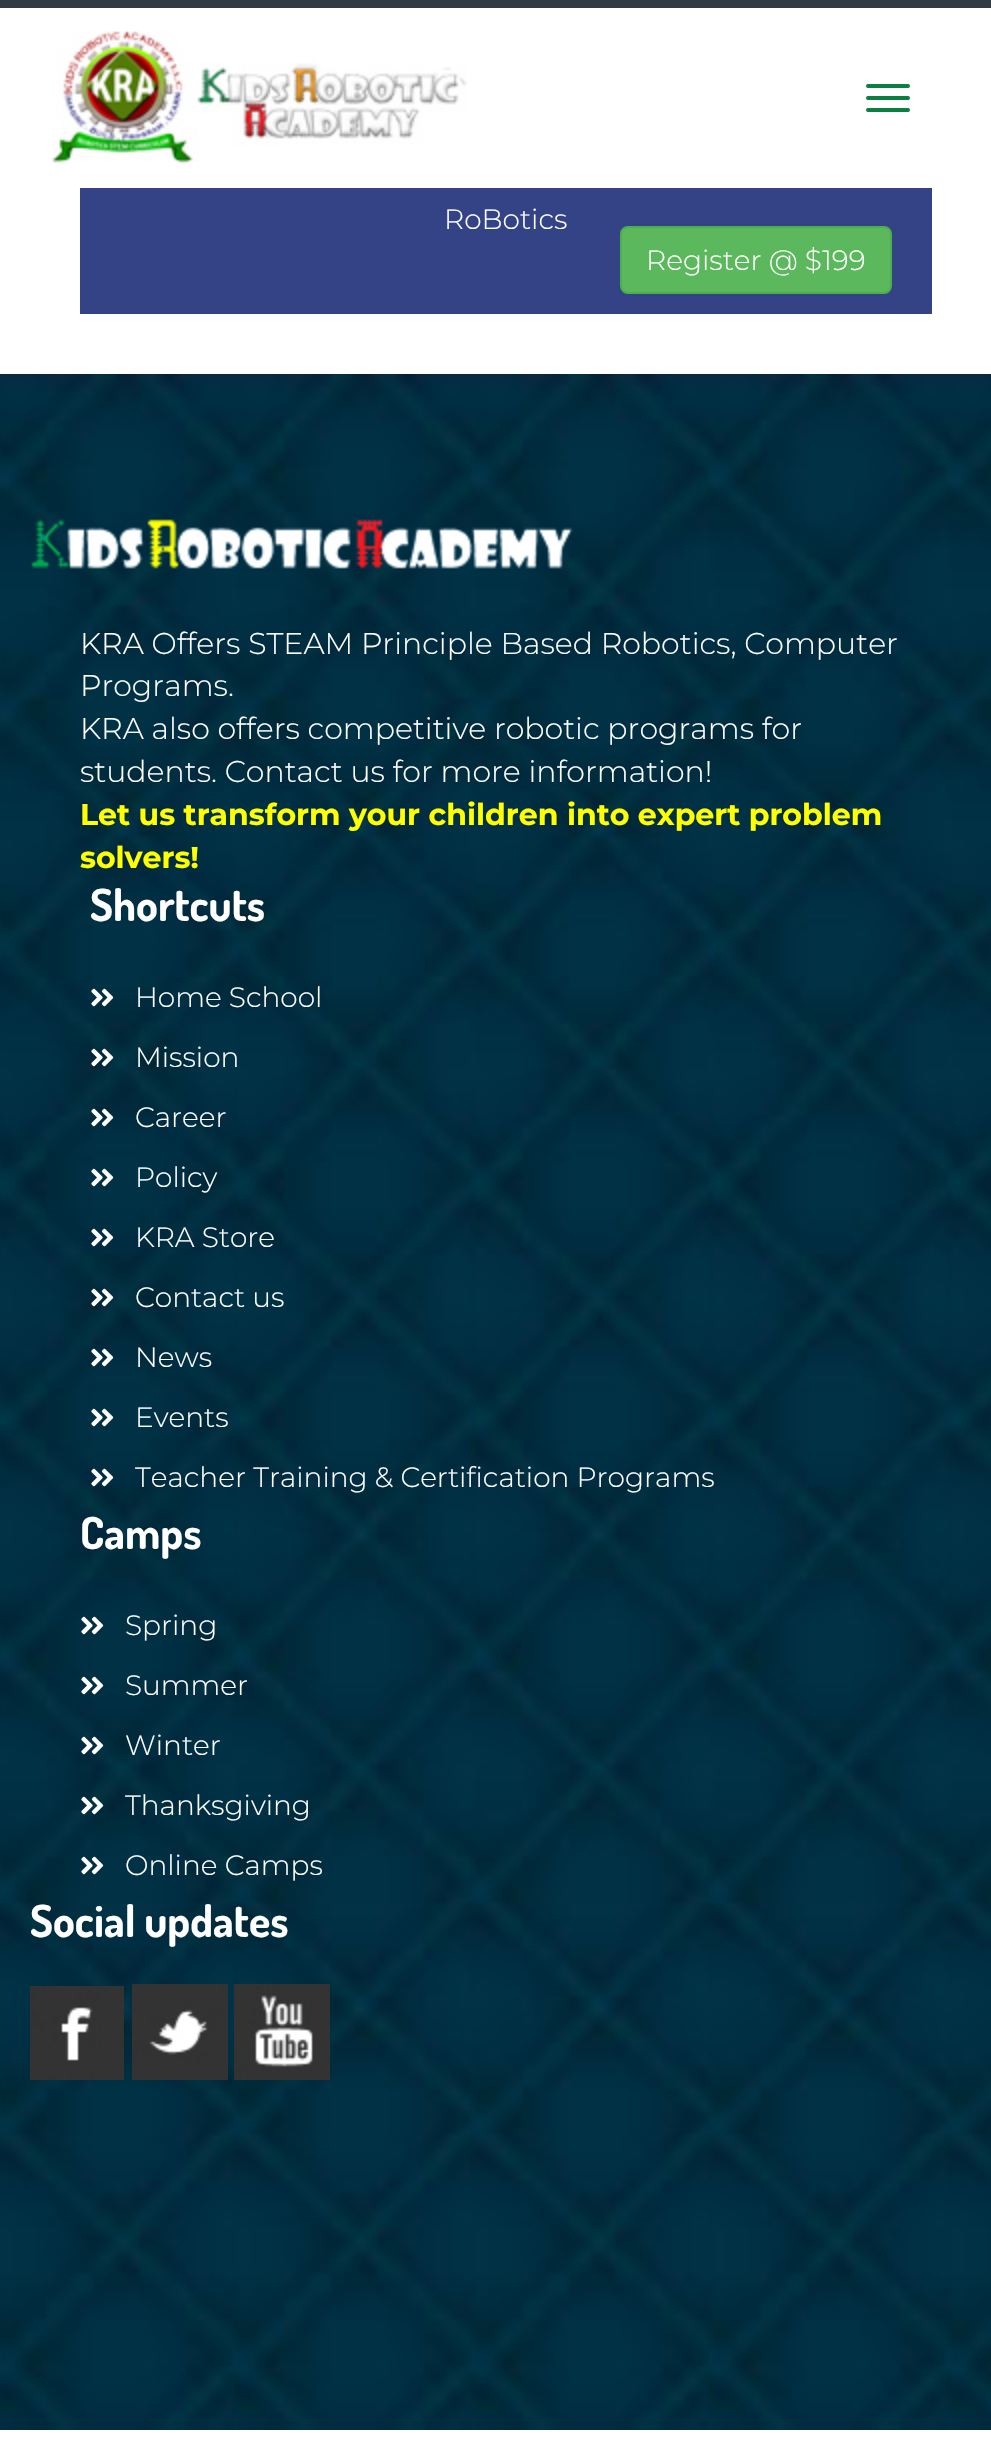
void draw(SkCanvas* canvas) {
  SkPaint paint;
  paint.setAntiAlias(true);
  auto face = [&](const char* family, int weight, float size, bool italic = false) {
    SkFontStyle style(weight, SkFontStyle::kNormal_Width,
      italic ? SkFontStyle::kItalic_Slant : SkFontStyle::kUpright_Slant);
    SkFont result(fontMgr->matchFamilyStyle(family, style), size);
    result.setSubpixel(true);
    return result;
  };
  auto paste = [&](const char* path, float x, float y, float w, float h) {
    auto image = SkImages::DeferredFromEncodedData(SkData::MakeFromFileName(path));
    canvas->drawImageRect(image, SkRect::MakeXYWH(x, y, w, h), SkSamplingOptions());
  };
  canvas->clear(0xffffffff);
  paint.setColor(0xff2f3c44);
  canvas->drawRect(SkRect::MakeXYWH(0, 0, 991, 8), paint);
  paste("img/1.png", 50, 31, 417, 132);
  paint.setColor(0xff098040);
  canvas->drawRoundRect(SkRect::MakeXYWH(866, 84, 44, 4), 2, 2, paint);
  canvas->drawRoundRect(SkRect::MakeXYWH(866, 96, 44, 4), 2, 2, paint);
  canvas->drawRoundRect(SkRect::MakeXYWH(866, 108, 44, 4), 2, 2, paint);
  paint.setColor(0xff344385);
  canvas->drawRect(SkRect::MakeXYWH(80, 188, 852, 126), paint);
  paint.setColor(0xff5cb85c);
  canvas->drawRoundRect(SkRect::MakeXYWH(621, 227, 270, 66), 7, 7, paint);
  paint.setStroke(true);
  paint.setStrokeWidth(2);
  paint.setColor(0xff4cae4c);
  canvas->drawRoundRect(SkRect::MakeXYWH(621, 227, 270, 66), 7, 7, paint);
  paste("img/2.png", 0, 374, 991, 2056);
  paste("img/3.png", 31, 519, 542, 50);
  paste("img/4.png", 91, 988, 23, 19);
  paste("img/5.png", 91, 1048, 23, 19);
  paste("img/6.png", 91, 1108, 23, 19);
  paste("img/7.png", 91, 1168, 23, 19);
  paste("img/8.png", 91, 1228, 23, 19);
  paste("img/9.png", 91, 1288, 23, 19);
  paste("img/10.png", 91, 1348, 23, 19);
  paste("img/7.png", 91, 1408, 23, 19);
  paste("img/11.png", 91, 1468, 23, 19);
  paste("img/12.png", 81, 1616, 23, 19);
  paste("img/13.png", 81, 1676, 23, 19);
  paste("img/14.png", 81, 1736, 23, 19);
  paste("img/15.png", 81, 1796, 23, 19);
  paste("img/16.png", 81, 1856, 23, 19);
  paste("img/17.png", 30, 1986, 94, 94);
  paste("img/18.png", 132, 1984, 96, 96);
  paste("img/19.png", 234, 1984, 96, 96);
  auto f0 = face("Montserrat", 300, 28);
  paint.setStroke(false);
  paint.setColor(0xffffffff);
  canvas->drawString("RoBotics", 444, 229, f0, paint);
  canvas->drawString("Register @ $199", 646, 270, f0, paint);
  auto f1 = face("Montserrat", 300, 30);
  {
    const struct { const char* s; float x, y; } items[] = {
      {"KRA Offers STEAM Principle Based Robotics, Computer", 80, 654},
      {"Programs.", 80, 696},
      {"KRA also offers competitive robotic programs for", 80, 739},
      {"students. Contact us for more information!", 80, 782},
    };
    for (auto [s, x, y] : items) {
      canvas->drawString(s, x, y, f1, paint);
    }
  }
  auto f2 = face("Montserrat", 700, 30);
  paint.setColor(0xffffff00);
  canvas->drawString("Let us transform your children into expert problem", 80, 825, f2, paint);
  canvas->drawString("solvers!", 80, 868, f2, paint);
  auto f3 = face("Dosis", 700, 44);
  paint.setColor(0xffffffff);
  canvas->drawString("Shortcuts", 90, 921, f3, paint);
  {
    const struct { const char* s; float x, y; } items[] = {
      {"Home School", 135, 1007},
      {"Mission", 135, 1067},
      {"Career", 135, 1127},
      {"Policy", 135, 1187},
      {"KRA Store", 135, 1247},
      {"Contact us", 135, 1307},
      {"News", 135, 1367},
      {"Events", 135, 1427},
      {"Teacher Training & Certification Programs", 135, 1487},
    };
    for (auto [s, x, y] : items) {
      canvas->drawString(s, x, y, f0, paint);
    }
  }
  canvas->drawString("Camps", 80, 1549, f3, paint);
  {
    const struct { const char* s; float x, y; } items[] = {
      {"Spring", 125, 1635},
      {"Summer", 125, 1695},
      {"Winter", 125, 1755},
      {"Thanksgiving", 125, 1815},
      {"Online Camps", 125, 1875},
    };
    for (auto [s, x, y] : items) {
      canvas->drawString(s, x, y, f0, paint);
    }
  }
  canvas->drawString("Social updates", 30, 1937, f3, paint);
}
